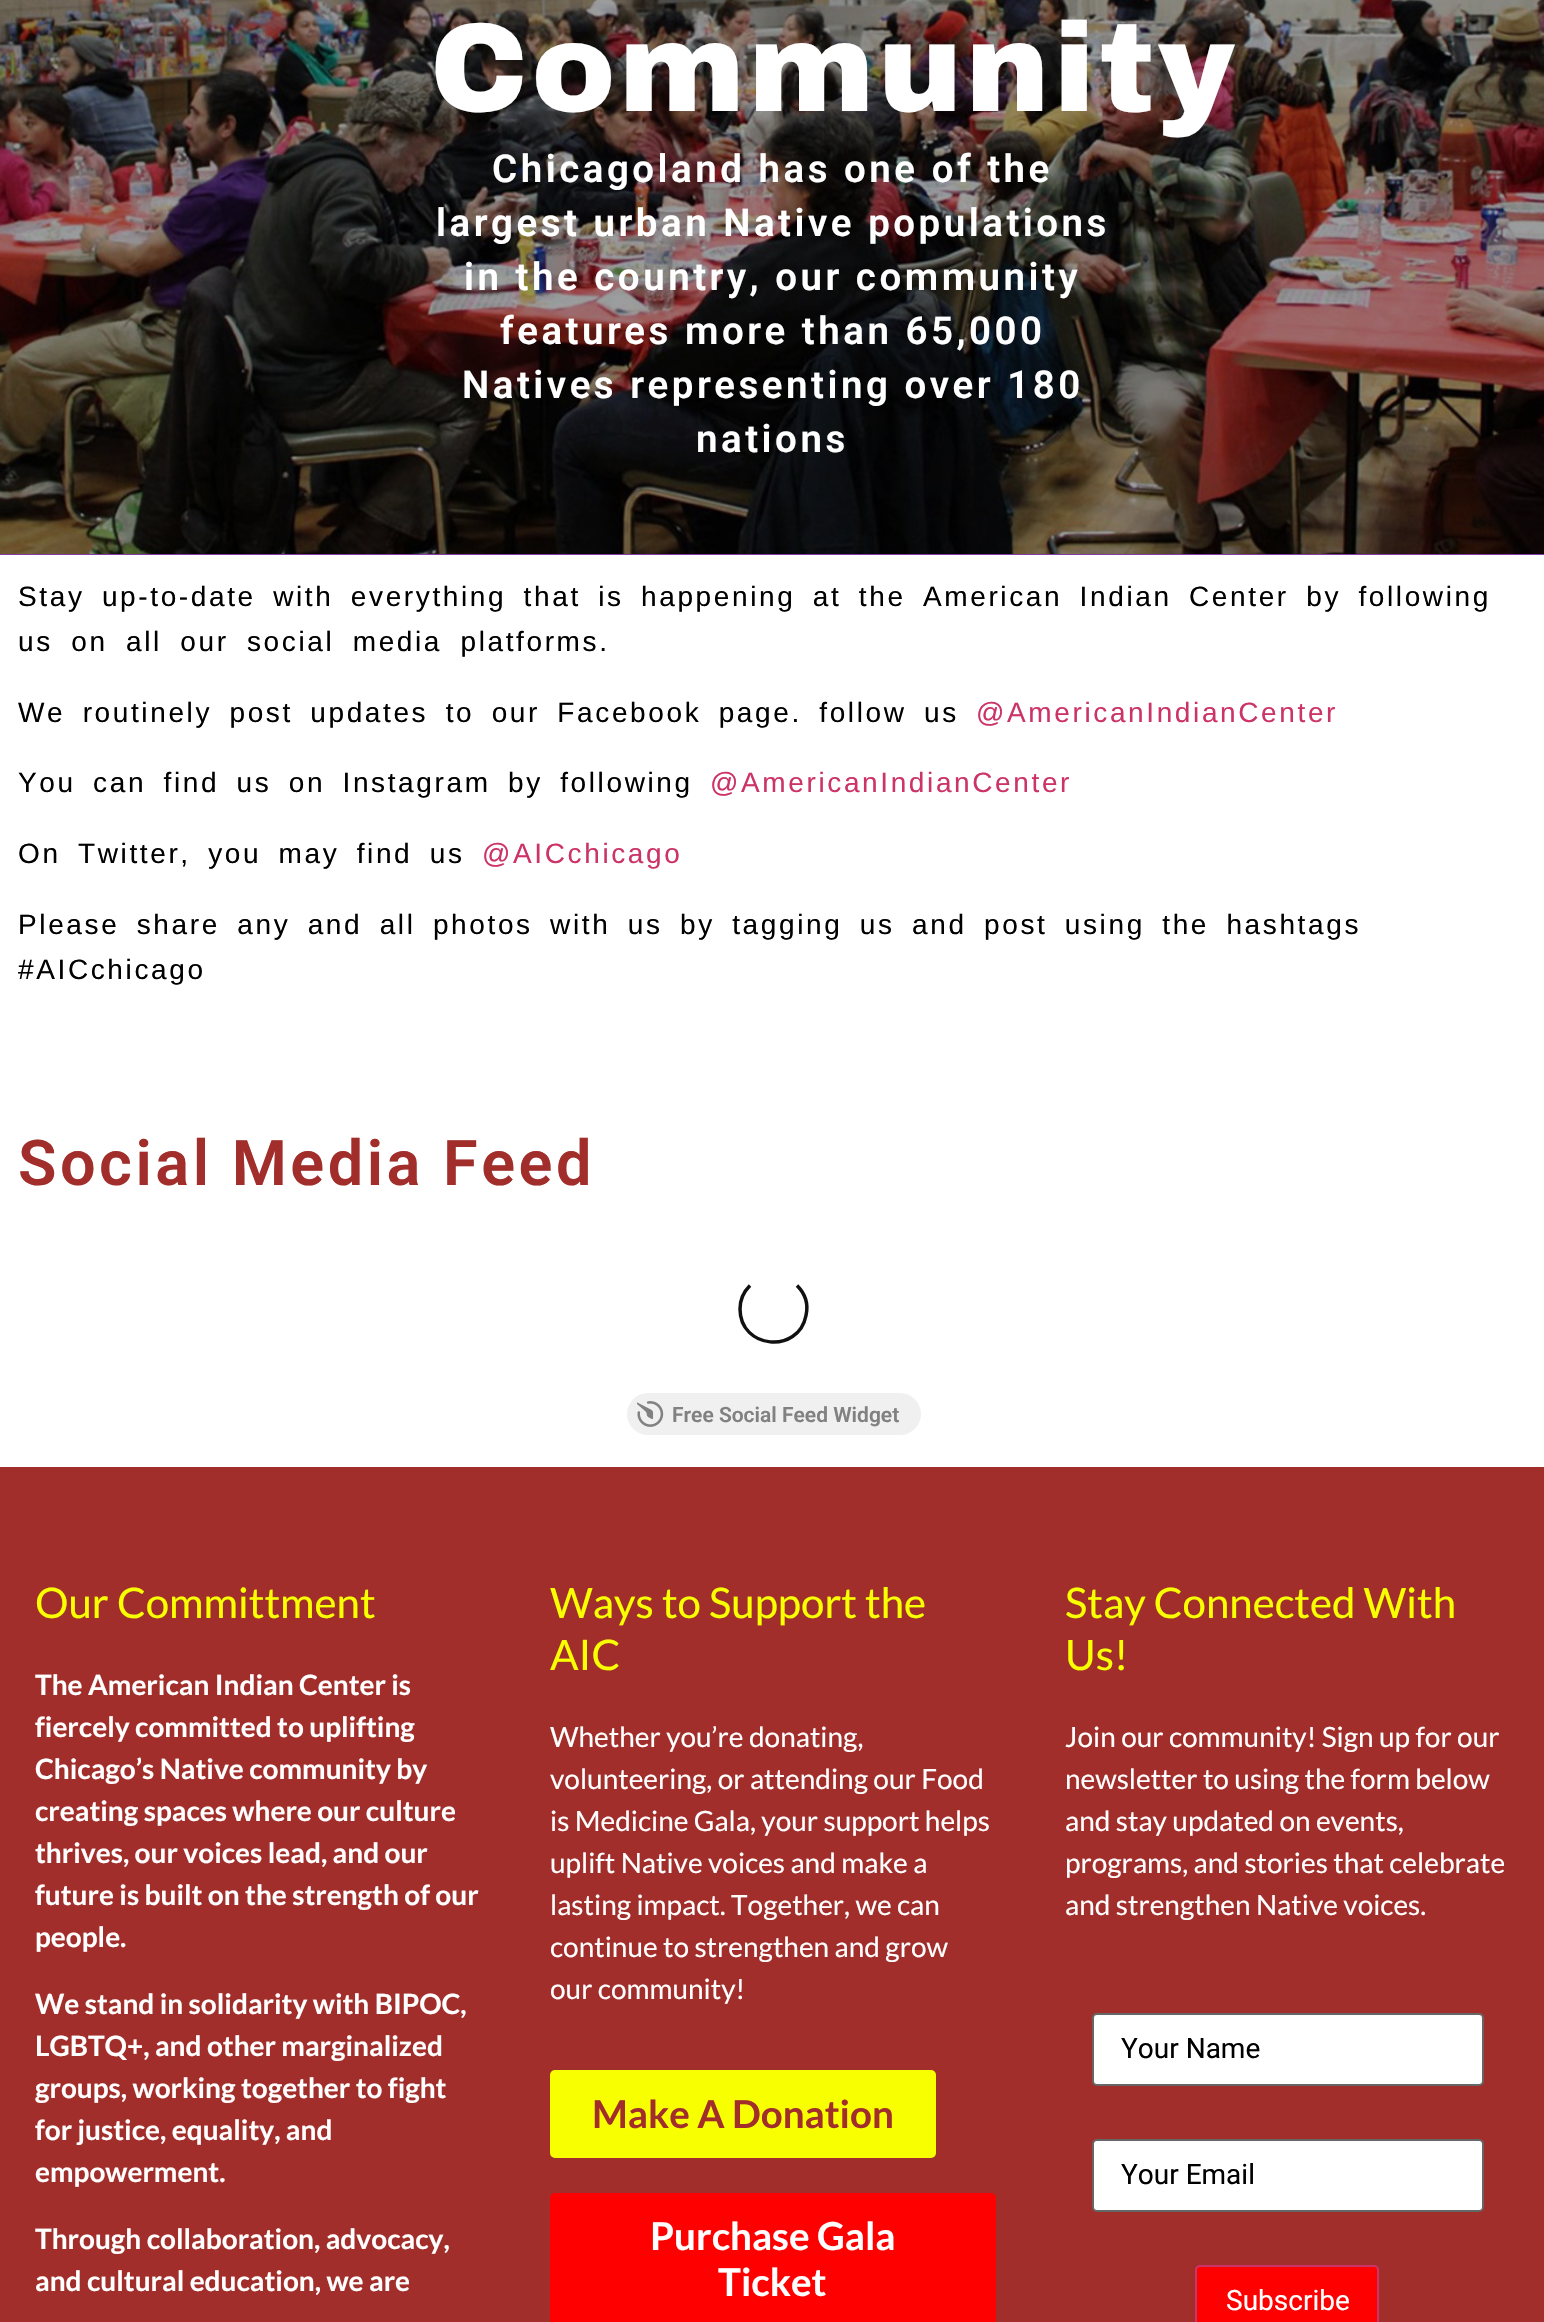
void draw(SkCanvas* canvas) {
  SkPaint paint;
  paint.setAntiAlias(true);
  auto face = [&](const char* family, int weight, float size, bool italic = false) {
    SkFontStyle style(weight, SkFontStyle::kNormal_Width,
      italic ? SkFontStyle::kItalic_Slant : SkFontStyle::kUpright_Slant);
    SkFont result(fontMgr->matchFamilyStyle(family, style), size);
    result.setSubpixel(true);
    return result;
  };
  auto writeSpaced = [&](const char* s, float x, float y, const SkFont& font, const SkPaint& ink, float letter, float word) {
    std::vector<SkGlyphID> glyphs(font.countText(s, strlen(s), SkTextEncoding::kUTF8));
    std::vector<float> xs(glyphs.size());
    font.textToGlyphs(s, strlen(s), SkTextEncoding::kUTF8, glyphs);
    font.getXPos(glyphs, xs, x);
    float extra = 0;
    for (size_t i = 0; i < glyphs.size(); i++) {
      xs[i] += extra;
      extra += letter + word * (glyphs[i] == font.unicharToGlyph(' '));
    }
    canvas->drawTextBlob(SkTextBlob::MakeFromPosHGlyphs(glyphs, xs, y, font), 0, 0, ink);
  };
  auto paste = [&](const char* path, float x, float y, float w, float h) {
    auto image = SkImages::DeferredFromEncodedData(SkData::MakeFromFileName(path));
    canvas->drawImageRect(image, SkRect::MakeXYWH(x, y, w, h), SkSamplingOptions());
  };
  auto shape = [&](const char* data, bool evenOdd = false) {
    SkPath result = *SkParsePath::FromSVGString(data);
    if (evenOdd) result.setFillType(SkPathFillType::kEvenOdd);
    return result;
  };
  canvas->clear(0xffffffff);
  paint.setColor(0xff833ca3);
  canvas->drawRect(SkRect::MakeXYWH(0, 554, 1544, 1), paint);
  paste("img/1.png", 0, 0, 1544, 554);
  paint.setStroke(true);
  paint.setStrokeWidth(3.5f);
  paint.setColor(0xff111111);
  canvas->drawPath(shape("M797 1285.5C805 1293.5 808.5 1304.5 806 1315.5C798.5 1354.5 740 1349 740 1309C740 1300 744 1291.5 750 1285.5"), paint);
  paint.setStroke(false);
  paint.setColor(0xfff0f0f0);
  canvas->drawRoundRect(SkRect::MakeXYWH(627, 1393, 294, 42), 21, 21, paint);
  paste("img/2.png", 637, 1401, 27, 26);
  paint.setColor(0xffa12e2a);
  canvas->drawRect(SkRect::MakeXYWH(0, 1467, 1544, 855), paint);
  paint.setColor(0xfff7ff00);
  canvas->drawRoundRect(SkRect::MakeXYWH(550, 2070, 386, 88), 5, 5, paint);
  paint.setColor(0xffff0000);
  canvas->drawRoundRect(SkRect::MakeXYWH(550, 2193, 446, 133), 5, 5, paint);
  paint.setColor(0xffffffff);
  canvas->drawRoundRect(SkRect::MakeXYWH(1093, 2014, 390, 71), 4, 4, paint);
  paint.setStroke(true);
  paint.setStrokeWidth(2);
  paint.setColor(0xff666666);
  canvas->drawRoundRect(SkRect::MakeXYWH(1093, 2014, 390, 71), 4, 4, paint);
  paint.setStroke(false);
  paint.setColor(0xffffffff);
  canvas->drawRoundRect(SkRect::MakeXYWH(1093, 2140, 390, 71), 4, 4, paint);
  paint.setStroke(true);
  paint.setColor(0xff666666);
  canvas->drawRoundRect(SkRect::MakeXYWH(1093, 2140, 390, 71), 4, 4, paint);
  paint.setStroke(false);
  paint.setColor(0xffff0000);
  canvas->drawRoundRect(SkRect::MakeXYWH(1196, 2266, 182, 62), 4, 4, paint);
  paint.setStroke(true);
  paint.setColor(0xffcc3366);
  canvas->drawRoundRect(SkRect::MakeXYWH(1196, 2266, 182, 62), 4, 4, paint);
  auto f0 = face("Archivo Black", 900, 126);
  paint.setStroke(false);
  paint.setColor(0xffffffff);
  writeSpaced("Community", 430, 111, f0, paint, 3.5f, 0);
  auto f1 = face("Roboto", 600, 38.5f);
  {
    const struct { const char* s; float x, y; } items[] = {
      {"Chicagoland has one of the", 492, 182},
      {"largest urban Native populations", 436, 236},
      {"in the country, our community", 464, 290},
      {"features more than 65,000", 500, 344},
      {"Natives representing over 180", 462, 398},
      {"nations", 696, 452},
    };
    for (auto [s, x, y] : items) {
      writeSpaced(s, x, y, f1, paint, 3.5f, 0);
    }
  }
  auto f2 = face("Liberation Sans", 400, 28);
  paint.setColor(0xff000000);
  writeSpaced("Stay up-to-date with everything that is happening at the American Indian Center by following", 18, 606, f2, paint, 2.62f, 7);
  writeSpaced("us on all our social media platforms.", 18, 651, f2, paint, 2.62f, 8);
  writeSpaced("We routinely post updates to our Facebook page. follow us", 18, 722, f2, paint, 2.62f, 7);
  paint.setColor(0xffcc3366);
  writeSpaced("@AmericanIndianCenter", 976, 722, f2, paint, 2.62f, 0);
  paint.setColor(0xff000000);
  writeSpaced("You can find us on Instagram by following", 18, 792, f2, paint, 2.62f, 7);
  paint.setColor(0xffcc3366);
  writeSpaced("@AmericanIndianCenter", 710, 792, f2, paint, 2.62f, 0);
  paint.setColor(0xff000000);
  writeSpaced("On Twitter, you may find us", 18, 863, f2, paint, 2.62f, 7);
  paint.setColor(0xffcc3366);
  writeSpaced("@AICchicago", 482, 863, f2, paint, 2.62f, 0);
  paint.setColor(0xff000000);
  writeSpaced("Please share any and all photos with us by tagging us and post using the hashtags", 18, 934, f2, paint, 2.62f, 7);
  writeSpaced("#AICchicago", 18, 979, f2, paint, 2.62f, 0);
  auto f3 = face("Roboto", 600, 63);
  paint.setColor(0xffa12e2a);
  writeSpaced("Social Media Feed", 18, 1185, f3, paint, 3.5f, 0);
  auto f4 = face("Roboto", 600, 21);
  paint.setColor(0xff818181);
  canvas->drawString("Free Social Feed Widget", 672, 1422, f4, paint);
  auto f5 = face("Lato", 400, 42);
  paint.setColor(0xfff7ff00);
  canvas->drawString("Our Committment", 35, 1618, f5, paint);
  auto f6 = face("Lato", 700, 28);
  paint.setColor(0xffffffff);
  {
    const struct { const char* s; float x, y; } items[] = {
      {"The American Indian Center is", 35, 1695},
      {"fiercely committed to uplifting", 35, 1737},
      {"Chicago’s Native community by", 35, 1779},
      {"creating spaces where our culture", 35, 1821},
      {"thrives, our voices lead, and our", 35, 1863},
      {"future is built on the strength of our", 35, 1905},
      {"people.", 35, 1947},
      {"We stand in solidarity with BIPOC,", 35, 2014},
      {"LGBTQ+, and other marginalized", 35, 2056},
      {"groups, working together to fight", 35, 2098},
      {"for justice, equality, and", 35, 2140},
      {"empowerment.", 35, 2182},
      {"Through collaboration, advocacy,", 35, 2249},
      {"and cultural education, we are", 35, 2291},
    };
    for (auto [s, x, y] : items) {
      canvas->drawString(s, x, y, f6, paint);
    }
  }
  paint.setColor(0xfff7ff00);
  canvas->drawString("Ways to Support the", 550, 1618, f5, paint);
  canvas->drawString("AIC", 550, 1670, f5, paint);
  auto f7 = face("Lato", 400, 28);
  paint.setColor(0xffffffff);
  {
    const struct { const char* s; float x, y; } items[] = {
      {"Whether you’re donating,", 550, 1747},
      {"volunteering, or attending our Food", 550, 1789},
      {"is Medicine Gala, your support helps", 550, 1831},
      {"uplift Native voices and make a", 550, 1873},
      {"lasting impact. Together, we can", 550, 1915},
      {"continue to strengthen and grow", 550, 1957},
      {"our community!", 550, 1999},
    };
    for (auto [s, x, y] : items) {
      canvas->drawString(s, x, y, f7, paint);
    }
  }
  auto f8 = face("Lato", 700, 38.5f);
  paint.setColor(0xffa12e2a);
  canvas->drawString("Make A Donation", 592, 2128, f8, paint);
  paint.setColor(0xffffffff);
  canvas->drawString("Purchase Gala", 650, 2250, f8, paint);
  canvas->drawString("Ticket", 718, 2296, f8, paint);
  paint.setColor(0xfff7ff00);
  canvas->drawString("Stay Connected With", 1065, 1618, f5, paint);
  canvas->drawString("Us!", 1065, 1670, f5, paint);
  paint.setColor(0xffffffff);
  {
    const struct { const char* s; float x, y; } items[] = {
      {"Join our community! Sign up for our", 1065, 1747},
      {"newsletter to using the form below", 1065, 1789},
      {"and stay updated on events,", 1065, 1831},
      {"programs, and stories that celebrate", 1065, 1873},
      {"and strengthen Native voices.", 1065, 1915},
    };
    for (auto [s, x, y] : items) {
      canvas->drawString(s, x, y, f7, paint);
    }
  }
  auto f9 = face("Roboto", 400, 28);
  paint.setColor(0xff000000);
  canvas->drawString("Your Name", 1121, 2058, f9, paint);
  canvas->drawString("Your Email", 1121, 2184, f9, paint);
  paint.setColor(0xffffffff);
  canvas->drawString("Subscribe", 1226, 2310, f9, paint);
}
